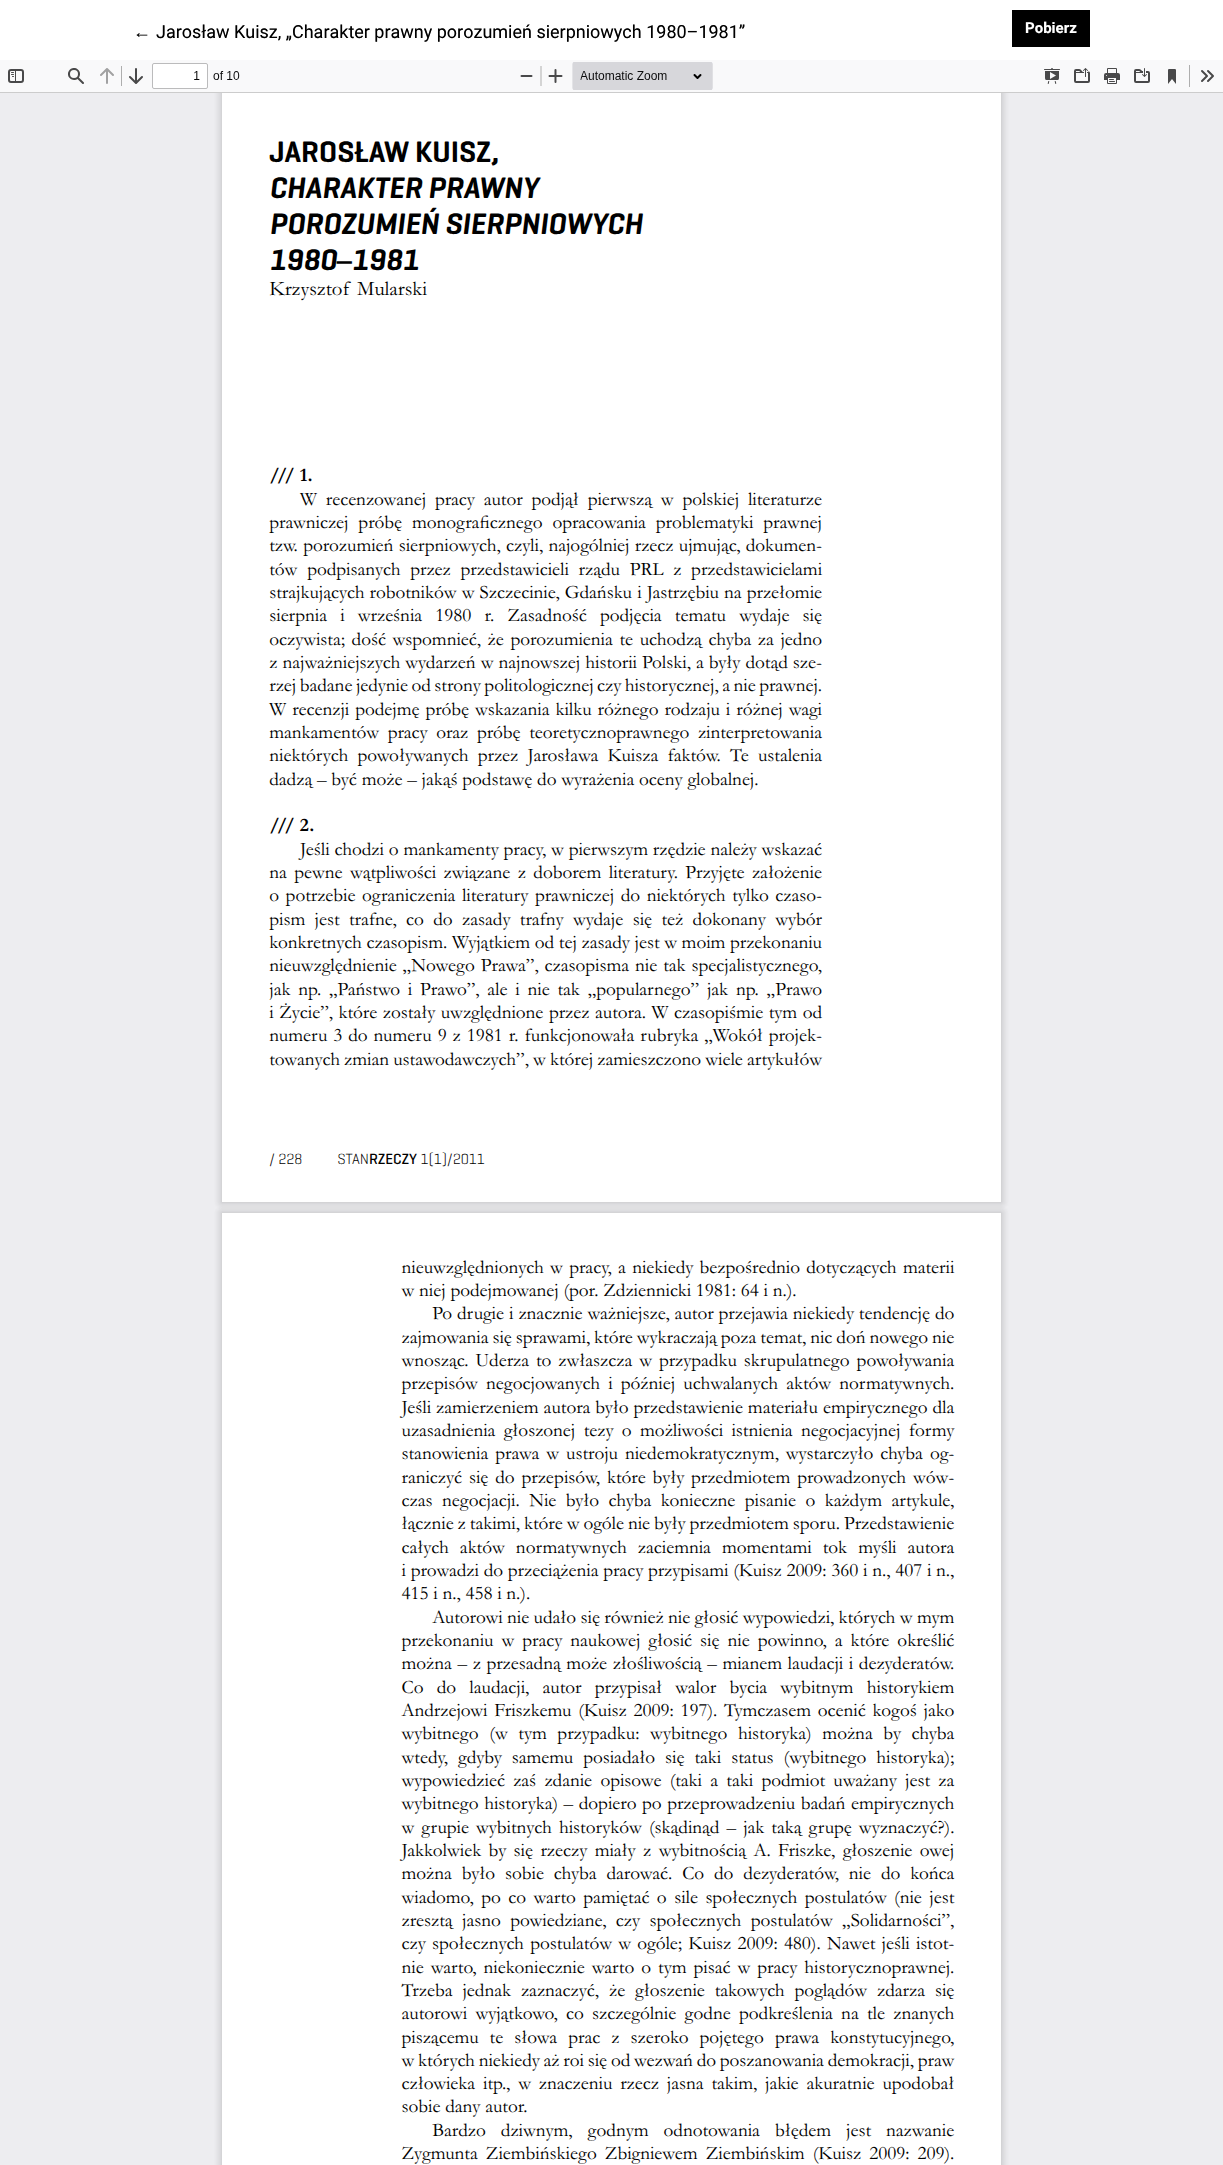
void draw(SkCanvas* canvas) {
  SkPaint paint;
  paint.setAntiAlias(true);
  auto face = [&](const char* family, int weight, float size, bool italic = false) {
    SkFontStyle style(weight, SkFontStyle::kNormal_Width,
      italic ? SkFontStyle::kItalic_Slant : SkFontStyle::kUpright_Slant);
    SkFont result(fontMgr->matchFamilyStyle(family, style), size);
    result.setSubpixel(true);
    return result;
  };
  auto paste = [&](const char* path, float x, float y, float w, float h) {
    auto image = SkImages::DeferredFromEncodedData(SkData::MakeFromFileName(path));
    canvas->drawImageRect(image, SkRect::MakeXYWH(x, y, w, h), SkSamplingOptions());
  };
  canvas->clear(0xffffffff);
  paint.setColor(0xff000000);
  canvas->drawRect(SkRect::MakeXYWH(1012, 10, 78, 37), paint);
  paste("img/1.png", 0, 60, 1223, 2105);
  auto f0 = face("Liberation Sans", 400, 18);
  canvas->drawString("←", 133, 38, f0, paint);
  auto f1 = face("Roboto", 400, 18);
  canvas->drawString("Jarosław Kuisz, „Charakter prawny porozumień sierpniowych 1980–1981”", 156, 38, f1, paint);
  auto f2 = face("Roboto", 700, 15);
  paint.setColor(0xffffffff);
  canvas->drawString("Pobierz", 1025, 33, f2, paint);
}
